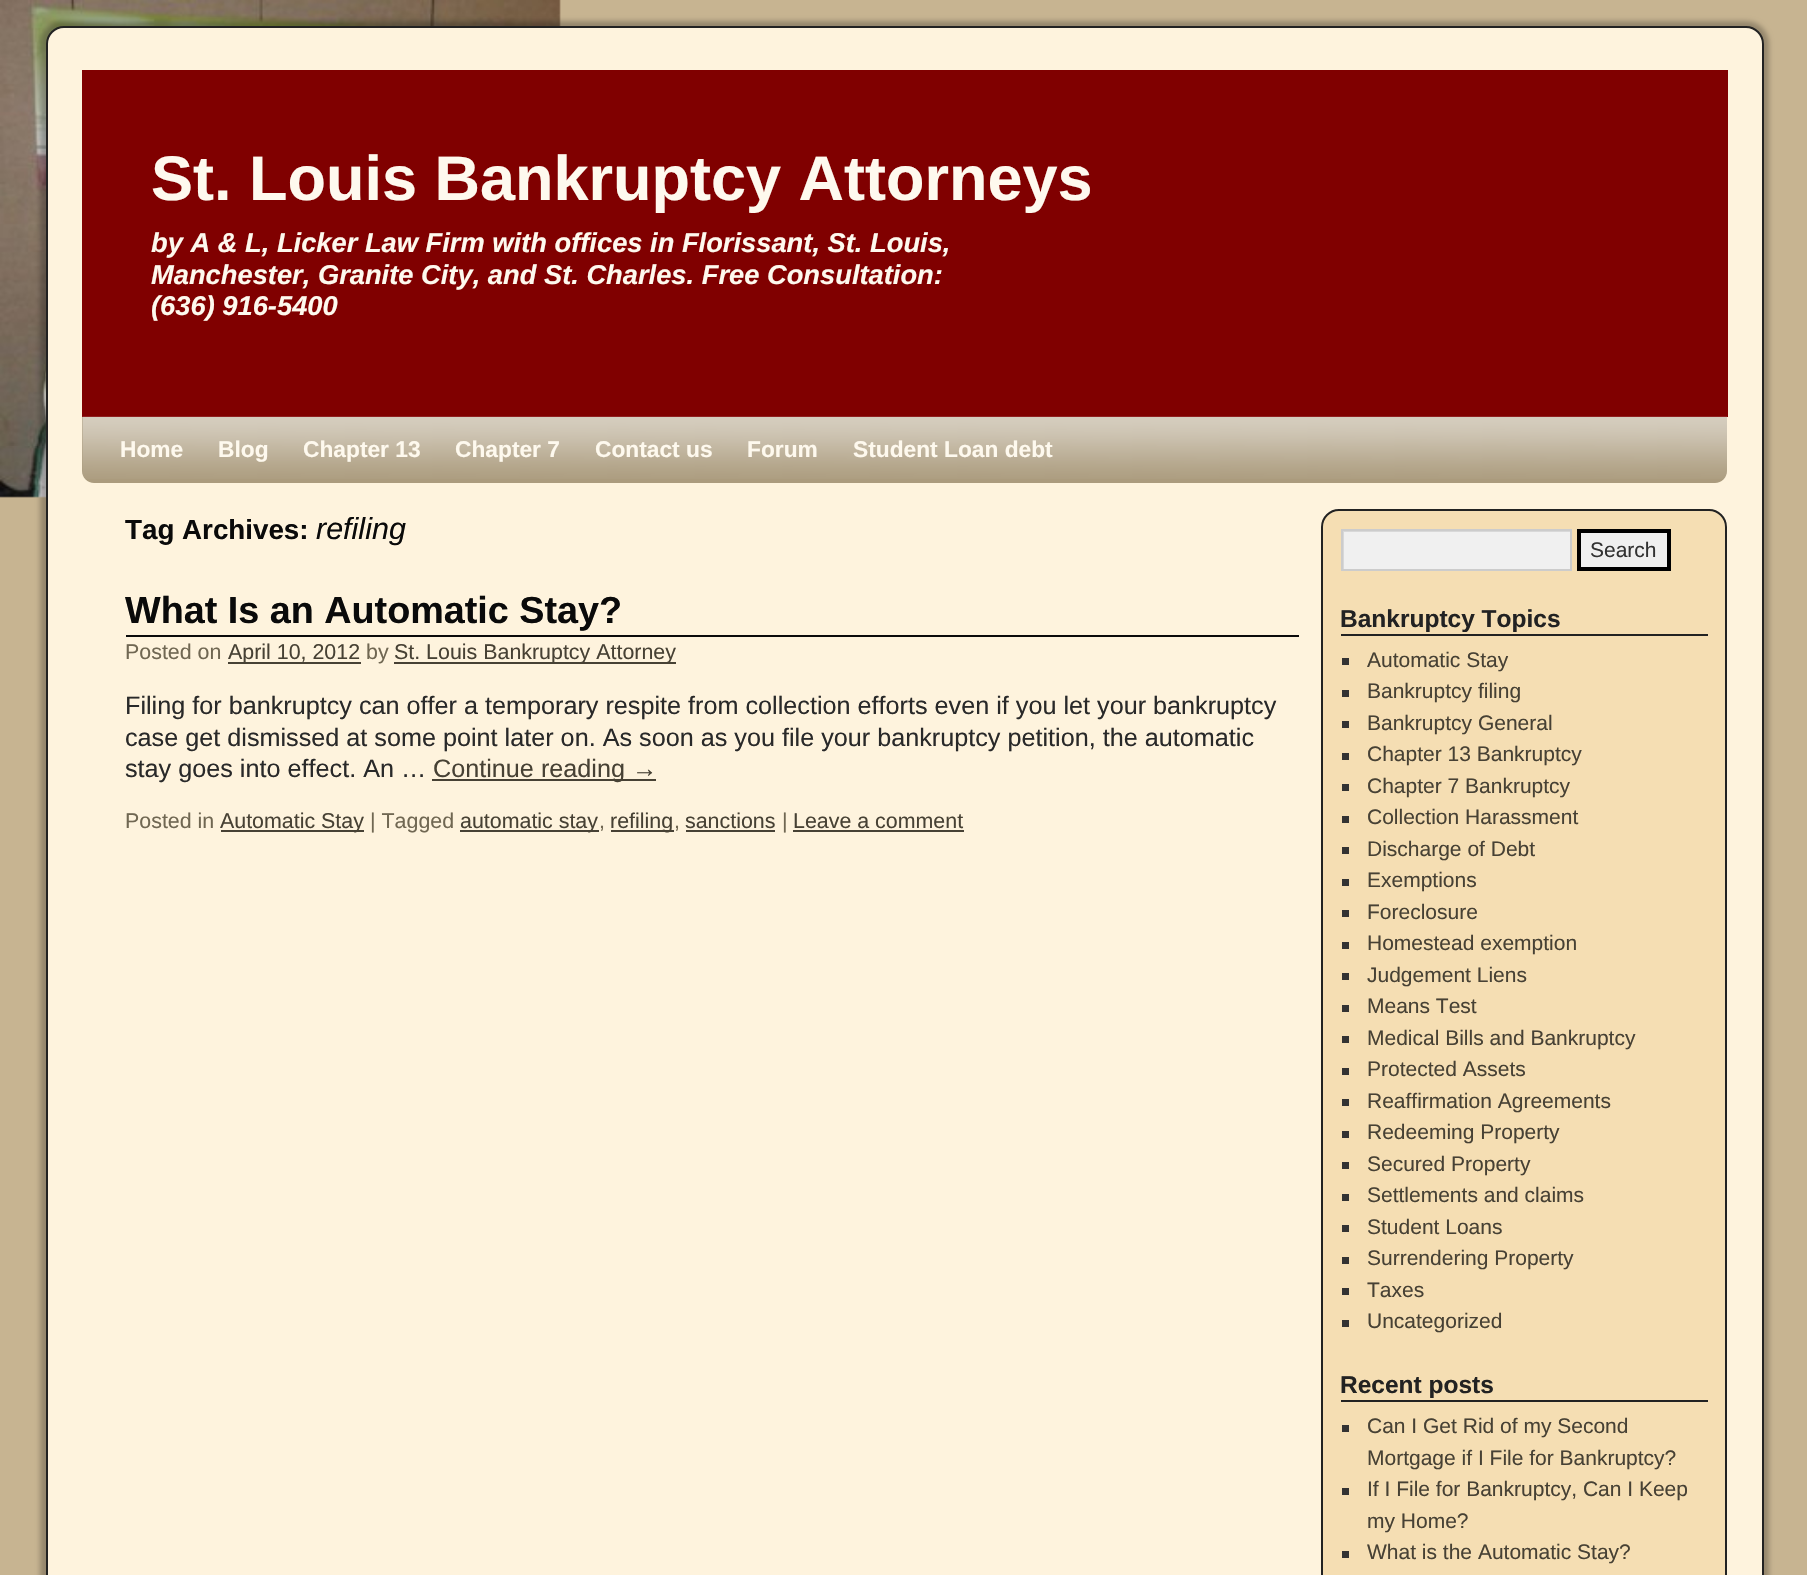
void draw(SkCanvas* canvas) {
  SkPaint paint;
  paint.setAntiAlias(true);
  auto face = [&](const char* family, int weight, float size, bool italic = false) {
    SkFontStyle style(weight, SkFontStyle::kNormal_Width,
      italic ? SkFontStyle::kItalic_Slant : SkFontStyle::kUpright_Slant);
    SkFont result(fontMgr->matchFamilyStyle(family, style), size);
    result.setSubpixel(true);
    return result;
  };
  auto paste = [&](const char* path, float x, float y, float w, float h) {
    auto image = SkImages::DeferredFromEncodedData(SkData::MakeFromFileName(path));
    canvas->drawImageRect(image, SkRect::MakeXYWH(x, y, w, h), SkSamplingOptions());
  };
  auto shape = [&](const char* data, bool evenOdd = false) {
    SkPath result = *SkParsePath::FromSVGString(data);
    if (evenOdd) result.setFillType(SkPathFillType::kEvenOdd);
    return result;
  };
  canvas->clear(0xffc7b491);
  paste("img/1.png", 0, 0, 561, 498);
  paint.setColor(0x40000000);
  paint.setMaskFilter(SkMaskFilter::MakeBlur(kNormal_SkBlurStyle, 2.5f));
  canvas->drawRoundRect(SkRect::MakeXYWH(40, 21, 1729, 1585), 23, 23, paint);
  paint.setMaskFilter(nullptr);
  paint.setColor(0xfffef3dd);
  canvas->drawRoundRect(SkRect::MakeXYWH(47, 27, 1716, 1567), 17, 17, paint);
  paint.setStroke(true);
  paint.setStrokeWidth(2);
  paint.setColor(0xff222222);
  canvas->drawRoundRect(SkRect::MakeXYWH(47, 27, 1716, 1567), 17, 17, paint);
  paint.setStroke(false);
  paint.setColor(0xff800000);
  canvas->drawRect(SkRect::MakeXYWH(82, 70, 1646, 347), paint);
  paint.setColor(0xffab9b7d);
  canvas->drawPath(shape("M82 417H1727V471C1727 477.5 1721.5 483 1715 483H94C87.5 483 82 477.5 82 471Z"), paint);
  paste("img/2.png", 82, 416, 1645, 63);
  {
    const struct { float x, y, w, h; SkColor color; } items[] = {
      {126, 635, 1173, 2, 0xff0a0a0a},
      {228, 662, 133, 2, 0xff474134},
      {394, 662, 282, 2, 0xff474134},
      {432, 779, 224, 2, 0xff474134},
      {221, 830, 143, 2, 0xff474134},
      {460, 830, 139, 2, 0xff474134},
      {611, 830, 63, 2, 0xff474134},
      {686, 830, 89, 2, 0xff474134},
      {793, 830, 171, 2, 0xff474134},
    };
    for (auto [x, y, w, h, color] : items) {
      paint.setColor(color);
      canvas->drawRect(SkRect::MakeXYWH(x, y, w, h), paint);
    }
  }
  paint.setColor(0xfff5deb3);
  canvas->drawRoundRect(SkRect::MakeXYWH(1322, 510, 404, 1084), 17, 17, paint);
  paint.setStroke(true);
  paint.setColor(0xff222222);
  canvas->drawRoundRect(SkRect::MakeXYWH(1322, 510, 404, 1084), 17, 17, paint);
  paint.setStroke(false);
  paint.setColor(0xfff0f0f0);
  canvas->drawRect(SkRect::MakeXYWH(1344, 532, 226, 37), paint);
  canvas->save();
  canvas->clipRect(SkRect::MakeXYWH(1342, 530, 228, 39));
  paint.setColor(0xffd8d8d8);
  canvas->drawPath(shape("M1339 511H1710C1719 511 1726 518 1726 527V742H1323V527C1323 518 1330 511 1339 511ZM1344 532V570H1572V532Z", true), paint);
  canvas->restore();
  paint.setStroke(true);
  paint.setColor(0xffcccccc);
  canvas->drawRect(SkRect::MakeXYWH(1342, 530, 229, 40), paint);
  paint.setStroke(false);
  paint.setColor(0xfff0f0f0);
  canvas->drawRect(SkRect::MakeXYWH(1579, 531, 90, 38), paint);
  paint.setStroke(true);
  paint.setStrokeWidth(4);
  paint.setColor(0xff000000);
  canvas->drawRect(SkRect::MakeXYWH(1579, 531, 90, 38), paint);
  paint.setStroke(false);
  {
    const struct { float x, y, w, h; SkColor color; } items[] = {
      {1341, 634, 367, 2, 0xff222222},
      {1342, 658, 7, 7, 0xff333333},
      {1342, 690, 7, 7, 0xff333333},
      {1342, 721, 7, 7, 0xff333333},
      {1342, 753, 7, 7, 0xff333333},
      {1342, 784, 7, 7, 0xff333333},
      {1342, 816, 7, 7, 0xff333333},
      {1342, 847, 7, 7, 0xff333333},
      {1342, 879, 7, 7, 0xff333333},
      {1342, 910, 7, 7, 0xff333333},
      {1342, 942, 7, 7, 0xff333333},
      {1342, 973, 7, 7, 0xff333333},
      {1342, 1005, 7, 7, 0xff333333},
      {1342, 1036, 7, 7, 0xff333333},
      {1342, 1068, 7, 7, 0xff333333},
      {1342, 1099, 7, 7, 0xff333333},
      {1342, 1131, 7, 7, 0xff333333},
      {1342, 1162, 7, 7, 0xff333333},
      {1342, 1194, 7, 7, 0xff333333},
      {1342, 1225, 7, 7, 0xff333333},
      {1342, 1257, 7, 7, 0xff333333},
      {1342, 1288, 7, 7, 0xff333333},
      {1342, 1320, 7, 7, 0xff333333},
      {1341, 1400, 367, 2, 0xff222222},
      {1342, 1425, 7, 7, 0xff333333},
      {1342, 1488, 7, 7, 0xff333333},
      {1342, 1551, 7, 7, 0xff333333},
    };
    for (auto [x, y, w, h, color] : items) {
      paint.setColor(color);
      canvas->drawRect(SkRect::MakeXYWH(x, y, w, h), paint);
    }
  }
  auto f0 = face("Liberation Sans", 700, 63);
  paint.setColor(0xfffef9ee);
  canvas->drawString("St. Louis Bankruptcy Attorneys", 151, 200, f0, paint);
  auto f1 = face("Liberation Sans", 700, 27.3f, true);
  {
    const struct { const char* s; float x, y; } items[] = {
      {"by A & L, Licker Law Firm with offices in Florissant, St. Louis,", 151, 252},
      {"Manchester, Granite City, and St. Charles. Free Consultation:", 151, 284},
      {"(636) 916-5400", 151, 315},
    };
    for (auto [s, x, y] : items) {
      canvas->drawString(s, x, y, f1, paint);
    }
  }
  auto f2 = face("Liberation Sans", 700, 22.75f);
  {
    const struct { const char* s; float x, y; } items[] = {
      {"Home", 120, 457},
      {"Blog", 218, 457},
      {"Chapter 13", 303, 457},
      {"Chapter 7", 455, 457},
      {"Contact us", 595, 457},
      {"Forum", 747, 457},
      {"Student Loan debt", 853, 457},
    };
    for (auto [s, x, y] : items) {
      canvas->drawString(s, x, y, f2, paint);
    }
  }
  auto f3 = face("Liberation Sans", 700, 27.75f);
  paint.setColor(0xff0a0a0a);
  canvas->drawString("Tag Archives:", 125, 539, f3, paint);
  auto f4 = face("Liberation Sans", 400, 30.5f, true);
  canvas->drawString("refiling", 316, 539, f4, paint);
  auto f5 = face("Liberation Sans", 700, 37.75f);
  canvas->drawString("What Is an Automatic Stay?", 125, 623, f5, paint);
  auto f6 = face("Liberation Sans", 400, 21.4f);
  paint.setColor(0xff706752);
  canvas->drawString("Posted on", 125, 659, f6, paint);
  paint.setColor(0xff474134);
  canvas->drawString("April 10, 2012", 228, 659, f6, paint);
  paint.setColor(0xff706752);
  canvas->drawString("by", 366, 659, f6, paint);
  paint.setColor(0xff474134);
  canvas->drawString("St. Louis Bankruptcy Attorney", 394, 659, f6, paint);
  auto f7 = face("Liberation Sans", 400, 25.2f);
  paint.setColor(0xff292929);
  {
    const struct { const char* s; float x, y; } items[] = {
      {"Filing for bankruptcy can offer a temporary respite from collection efforts even if you let your bankruptcy", 125, 714},
      {"case get dismissed at some point later on. As soon as you file your bankruptcy petition, the automatic", 125, 746},
      {"stay goes into effect. An …", 125, 777},
    };
    for (auto [s, x, y] : items) {
      canvas->drawString(s, x, y, f7, paint);
    }
  }
  paint.setColor(0xff474134);
  canvas->drawString("Continue reading →", 433, 777, f7, paint);
  paint.setColor(0xff706752);
  canvas->drawString("Posted in", 125, 828, f6, paint);
  paint.setColor(0xff474134);
  canvas->drawString("Automatic Stay", 220, 828, f6, paint);
  paint.setColor(0xff706752);
  canvas->drawString("| Tagged", 370, 828, f6, paint);
  paint.setColor(0xff474134);
  canvas->drawString("automatic stay", 460, 828, f6, paint);
  paint.setColor(0xff706752);
  canvas->drawString(",", 599, 828, f6, paint);
  paint.setColor(0xff474134);
  canvas->drawString("refiling", 610, 828, f6, paint);
  paint.setColor(0xff706752);
  canvas->drawString(",", 674, 828, f6, paint);
  paint.setColor(0xff474134);
  canvas->drawString("sanctions", 685, 828, f6, paint);
  paint.setColor(0xff706752);
  canvas->drawString("|", 782, 828, f6, paint);
  paint.setColor(0xff474134);
  canvas->drawString("Leave a comment", 793, 828, f6, paint);
  auto f8 = face("Liberation Sans", 400, 21);
  paint.setColor(0xff333333);
  canvas->drawString("Search", 1590, 557, f8, paint);
  auto f9 = face("Liberation Sans", 700, 24.5f);
  paint.setColor(0xff222222);
  canvas->drawString("Bankruptcy Topics", 1340, 627, f9, paint);
  paint.setColor(0xff474134);
  {
    const struct { const char* s; float x, y; } items[] = {
      {"Automatic Stay", 1367, 667},
      {"Bankruptcy filing", 1367, 698},
      {"Bankruptcy General", 1367, 730},
      {"Chapter 13 Bankruptcy", 1367, 761},
      {"Chapter 7 Bankruptcy", 1367, 793},
      {"Collection Harassment", 1367, 824},
      {"Discharge of Debt", 1367, 856},
      {"Exemptions", 1367, 887},
      {"Foreclosure", 1367, 919},
      {"Homestead exemption", 1367, 950},
      {"Judgement Liens", 1367, 982},
      {"Means Test", 1367, 1013},
      {"Medical Bills and Bankruptcy", 1367, 1045},
      {"Protected Assets", 1367, 1076},
      {"Reaffirmation Agreements", 1367, 1108},
      {"Redeeming Property", 1367, 1139},
      {"Secured Property", 1367, 1171},
      {"Settlements and claims", 1367, 1202},
      {"Student Loans", 1367, 1234},
      {"Surrendering Property", 1367, 1265},
      {"Taxes", 1367, 1297},
      {"Uncategorized", 1367, 1328},
    };
    for (auto [s, x, y] : items) {
      canvas->drawString(s, x, y, f8, paint);
    }
  }
  paint.setColor(0xff222222);
  canvas->drawString("Recent posts", 1340, 1393, f9, paint);
  paint.setColor(0xff474134);
  {
    const struct { const char* s; float x, y; } items[] = {
      {"Can I Get Rid of my Second", 1367, 1433},
      {"Mortgage if I File for Bankruptcy?", 1367, 1465},
      {"If I File for Bankruptcy, Can I Keep", 1367, 1496},
      {"my Home?", 1367, 1528},
      {"What is the Automatic Stay?", 1367, 1559},
    };
    for (auto [s, x, y] : items) {
      canvas->drawString(s, x, y, f8, paint);
    }
  }
}
